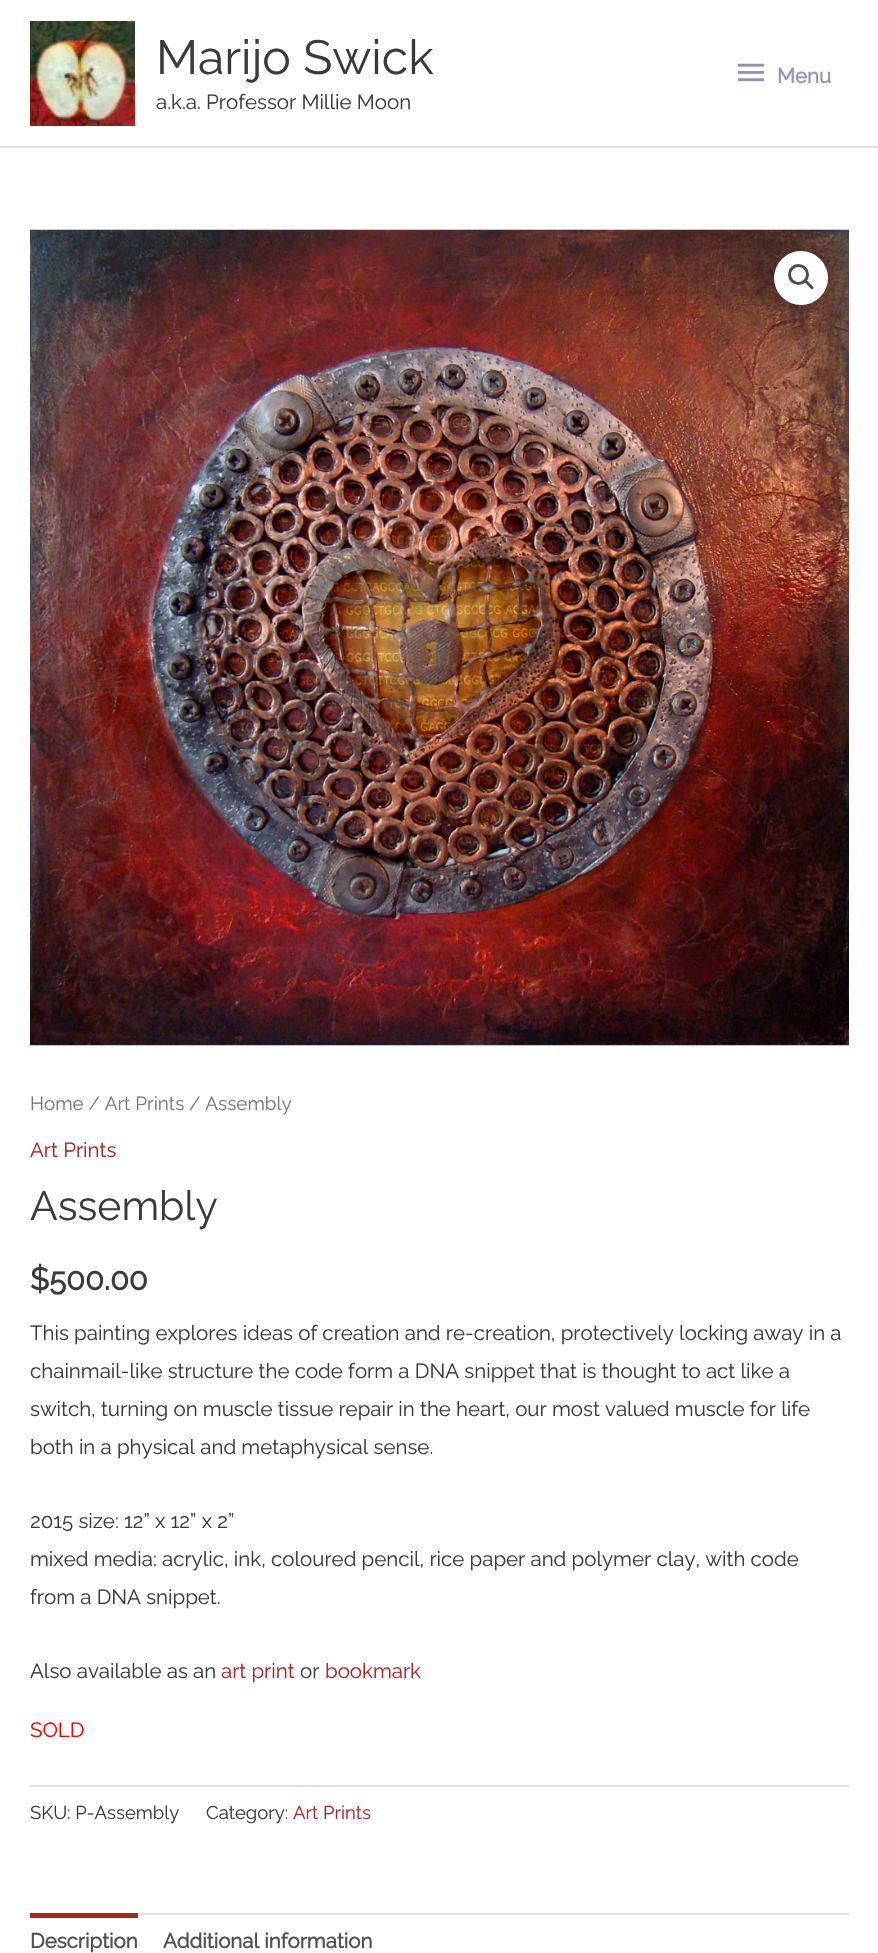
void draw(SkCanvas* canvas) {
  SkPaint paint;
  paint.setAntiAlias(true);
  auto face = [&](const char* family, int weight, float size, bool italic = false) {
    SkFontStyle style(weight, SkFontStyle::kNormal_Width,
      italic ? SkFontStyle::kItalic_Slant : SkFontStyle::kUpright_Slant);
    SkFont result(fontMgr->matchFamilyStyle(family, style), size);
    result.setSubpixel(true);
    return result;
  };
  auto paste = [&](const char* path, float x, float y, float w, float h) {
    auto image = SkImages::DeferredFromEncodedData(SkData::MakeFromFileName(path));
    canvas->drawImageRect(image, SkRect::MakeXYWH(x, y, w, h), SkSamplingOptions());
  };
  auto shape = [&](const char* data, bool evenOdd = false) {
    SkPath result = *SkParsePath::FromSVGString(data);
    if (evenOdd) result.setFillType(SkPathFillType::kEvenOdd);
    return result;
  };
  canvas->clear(0xffffffff);
  paint.setColor(0xffdddddd);
  canvas->drawRect(SkRect::MakeXYWH(0, 146, 878, 2), paint);
  paste("img/1.png", 30, 21, 105, 105);
  paste("img/2.png", 737, 63, 27, 19);
  paste("img/3.png", 30, 229, 819, 817);
  paint.setColor(0xffffffff);
  canvas->drawCircle(801, 278, 27, paint);
  paint.setStroke(true);
  paint.setStrokeWidth(3);
  paint.setColor(0xff4b4f58);
  canvas->drawCircle(798.5f, 274.5f, 9, paint);
  paint.setStroke(false);
  canvas->drawPath(shape("M804.5 280.5C806.5 278.5 809 282.5 810 283.5C811 284.5 815 287 813 289C811.5 290.5 809 286.5 808 285.5C807 284.5 803 282 804.5 280.5Z"), paint);
  {
    const struct { float x, y, w, h; SkColor color; } items[] = {
      {30, 1785, 819, 2, 0xffdddddd},
      {138, 1913, 711, 2, 0xffdddddd},
      {30, 1913, 108, 5, 0xffad2424},
    };
    for (auto [x, y, w, h, color] : items) {
      paint.setColor(color);
      canvas->drawRect(SkRect::MakeXYWH(x, y, w, h), paint);
    }
  }
  auto f0 = face("Raleway", 100, 48);
  paint.setColor(0xff3a3a3a);
  canvas->drawString("Marijo Swick", 156, 74, f0, paint);
  auto f1 = face("Raleway", 100, 20.5f);
  canvas->drawString("a.k.a. Professor Millie Moon", 156, 109, f1, paint);
  auto f2 = face("Raleway", 700, 20.5f);
  paint.setColor(0xff9294b1);
  canvas->drawString("Menu", 777, 83, f2, paint);
  auto f3 = face("Raleway", 100, 18.9f);
  paint.setColor(0xff777777);
  canvas->drawString("Home / Art Prints / Assembly", 30, 1110, f3, paint);
  paint.setColor(0xffad2424);
  canvas->drawString("Art Prints", 30, 1157, f1, paint);
  auto f4 = face("Raleway", 100, 41);
  paint.setColor(0xff3a3a3a);
  canvas->drawString("Assembly", 30, 1220, f4, paint);
  auto f5 = face("Raleway", 700, 31);
  canvas->drawString("$500.00", 30, 1290, f5, paint);
  {
    const struct { const char* s; float x, y; } items[] = {
      {"This painting explores ideas of creation and re-creation, protectively locking away in a", 30, 1340},
      {"chainmail-like structure the code form a DNA snippet that is thought to act like a", 30, 1378},
      {"switch, turning on muscle tissue repair in the heart, our most valued muscle for life", 30, 1416},
      {"both in a physical and metaphysical sense.", 30, 1454},
      {"2015 size: 12” x 12” x 2”", 30, 1528},
      {"mixed media: acrylic, ink, coloured pencil, rice paper and polymer clay, with code", 30, 1566},
      {"from a DNA snippet.", 30, 1604},
      {"Also available as an", 30, 1678},
    };
    for (auto [s, x, y] : items) {
      canvas->drawString(s, x, y, f1, paint);
    }
  }
  paint.setColor(0xffad2424);
  canvas->drawString("art print", 221, 1678, f1, paint);
  paint.setColor(0xff3a3a3a);
  canvas->drawString("or", 300, 1678, f1, paint);
  paint.setColor(0xffad2424);
  canvas->drawString("bookmark", 325, 1678, f1, paint);
  paint.setColor(0xffff0000);
  canvas->drawString("SOLD", 30, 1737, f1, paint);
  auto f6 = face("Raleway", 100, 18.5f);
  paint.setColor(0xff3a3a3a);
  canvas->drawString("SKU: P-Assembly", 30, 1819, f6, paint);
  canvas->drawString("Category:", 206, 1819, f6, paint);
  paint.setColor(0xffad2424);
  canvas->drawString("Art Prints", 293, 1819, f6, paint);
  paint.setColor(0xff515151);
  canvas->drawString("Description", 30, 1948, f2, paint);
  canvas->drawString("Additional information", 163, 1948, f2, paint);
}
